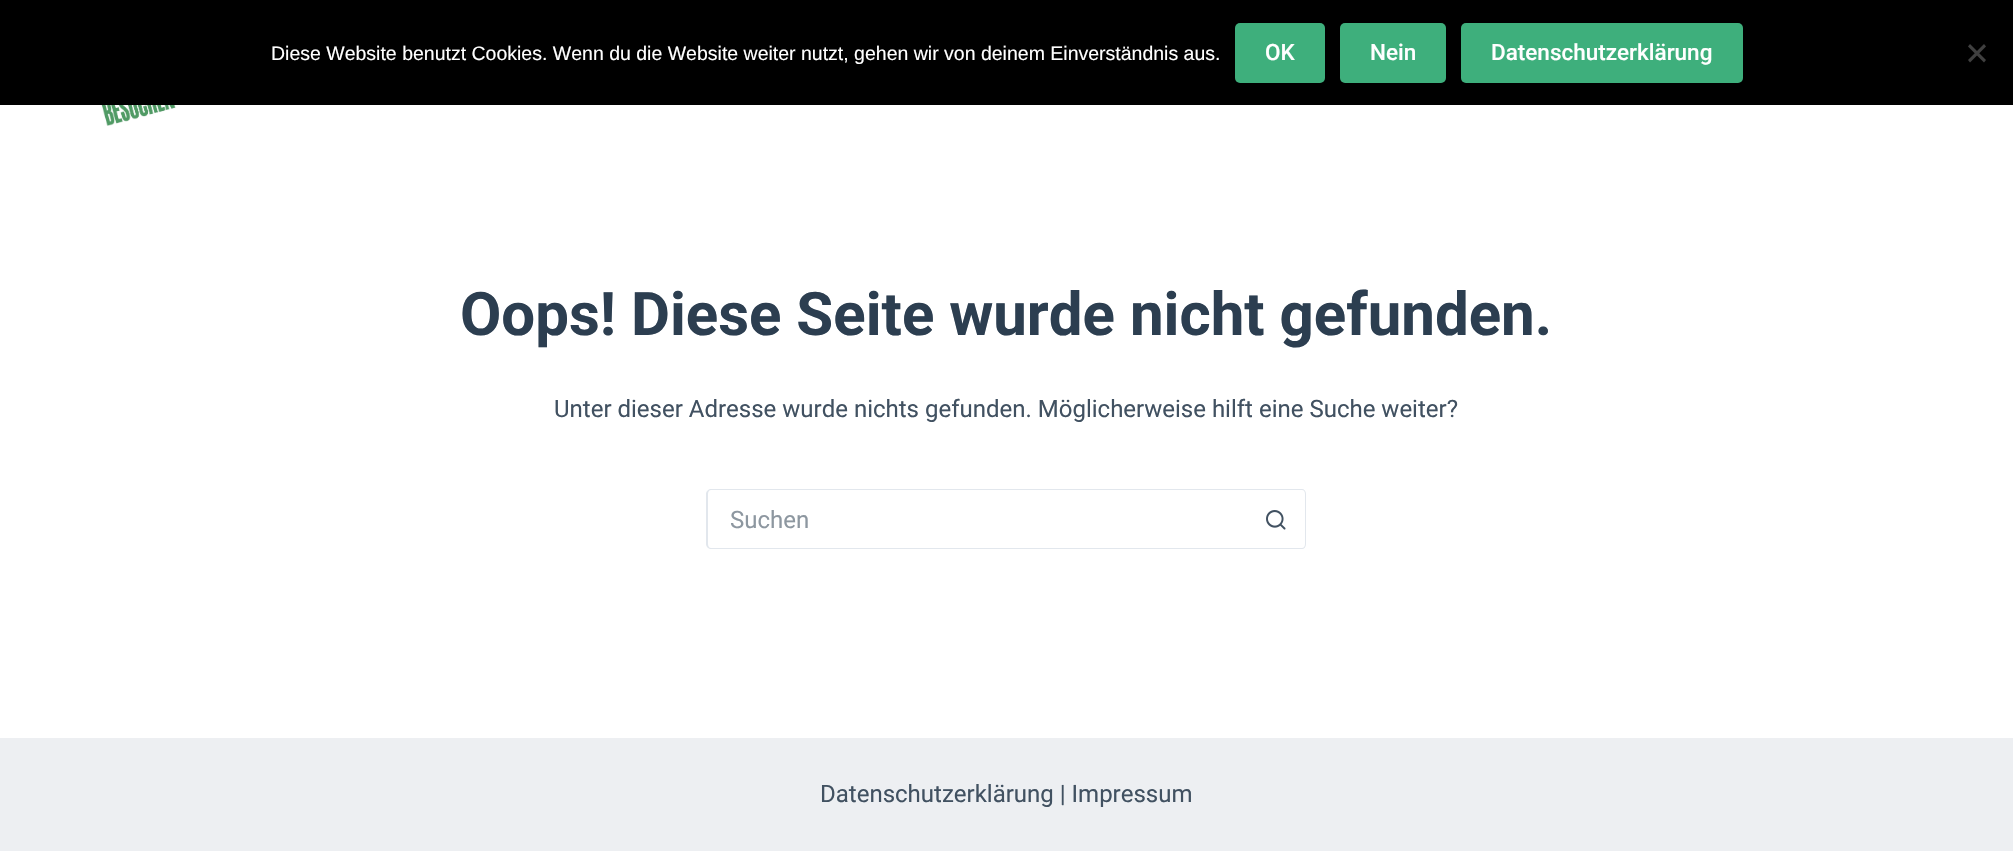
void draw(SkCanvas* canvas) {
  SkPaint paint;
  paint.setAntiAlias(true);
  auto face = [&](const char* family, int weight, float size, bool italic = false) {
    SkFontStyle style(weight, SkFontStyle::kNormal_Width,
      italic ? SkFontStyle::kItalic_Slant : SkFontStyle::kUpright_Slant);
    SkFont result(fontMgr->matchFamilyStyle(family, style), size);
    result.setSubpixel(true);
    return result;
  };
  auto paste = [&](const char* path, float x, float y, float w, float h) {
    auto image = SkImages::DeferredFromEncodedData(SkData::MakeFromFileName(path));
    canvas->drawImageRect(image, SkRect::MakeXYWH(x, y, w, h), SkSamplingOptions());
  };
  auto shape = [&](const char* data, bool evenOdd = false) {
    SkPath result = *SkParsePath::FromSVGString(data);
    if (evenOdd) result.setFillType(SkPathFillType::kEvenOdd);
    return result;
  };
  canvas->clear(0xffffffff);
  paint.setColor(0xff000000);
  canvas->drawRect(SkRect::MakeXYWH(0, 0, 2013, 105), paint);
  paint.setColor(0xff3eaf7c);
  canvas->drawRoundRect(SkRect::MakeXYWH(1235, 23, 90, 60), 5, 5, paint);
  canvas->drawRoundRect(SkRect::MakeXYWH(1340, 23, 106, 60), 5, 5, paint);
  canvas->drawRoundRect(SkRect::MakeXYWH(1461, 23, 282, 60), 5, 5, paint);
  paint.setColor(0xff404040);
  canvas->drawPath(shape("M1984 44L1986 46.5L1970 62.5L1968 60Z"), paint);
  canvas->drawPath(shape("M1968 46.5L1970 44L1986 60L1984 62.5Z"), paint);
  paste("img/1.png", 100, 105, 80, 21);
  paint.setColor(0xffe2e7ed);
  canvas->drawPath(shape("M711 489H1246V549H711C709 549 706 547 706 544V494C706 491 709 489 711 489ZM711 490H1246V548H711C709 548 708 546 708 544V494C708 492 709 490 711 490Z", true), paint);
  canvas->drawPath(shape("M1246 489H1302C1304 489 1306 491 1306 494V544C1306 547 1304 549 1302 549H1246ZM1246 490H1302C1304 490 1305 492 1305 494V544C1305 546 1304 548 1302 548H1246Z", true), paint);
  paste("img/2.png", 1266, 510, 20, 20);
  paint.setColor(0xffedeff2);
  canvas->drawRect(SkRect::MakeXYWH(0, 738, 2013, 113), paint);
  auto f0 = face("Liberation Sans", 400, 19.5f);
  paint.setColor(0xffffffff);
  canvas->drawString("Diese Website benutzt Cookies. Wenn du die Website weiter nutzt, gehen wir von deinem Einverständnis aus.", 271, 60, f0, paint);
  auto f1 = face("Roboto", 500, 22.5f);
  {
    const struct { const char* s; float x, y; } items[] = {
      {"OK", 1265, 60},
      {"Nein", 1370, 60},
      {"Datenschutzerklärung", 1491, 60},
    };
    for (auto [s, x, y] : items) {
      canvas->drawString(s, x, y, f1, paint);
    }
  }
  auto f2 = face("Roboto", 700, 60);
  paint.setColor(0xff2c3e50);
  canvas->drawString("Oops! Diese Seite wurde nicht gefunden.", 460, 335, f2, paint);
  auto f3 = face("Roboto", 400, 24);
  paint.setColor(0xff415161);
  canvas->drawString("Unter dieser Adresse wurde nichts gefunden. Möglicherweise hilft eine Suche weiter?", 554, 417, f3, paint);
  paint.setColor(0xff8d97a0);
  canvas->drawString("Suchen", 730, 528, f3, paint);
  paint.setColor(0xff415161);
  canvas->drawString("Datenschutzerklärung | Impressum", 820, 802, f3, paint);
}
